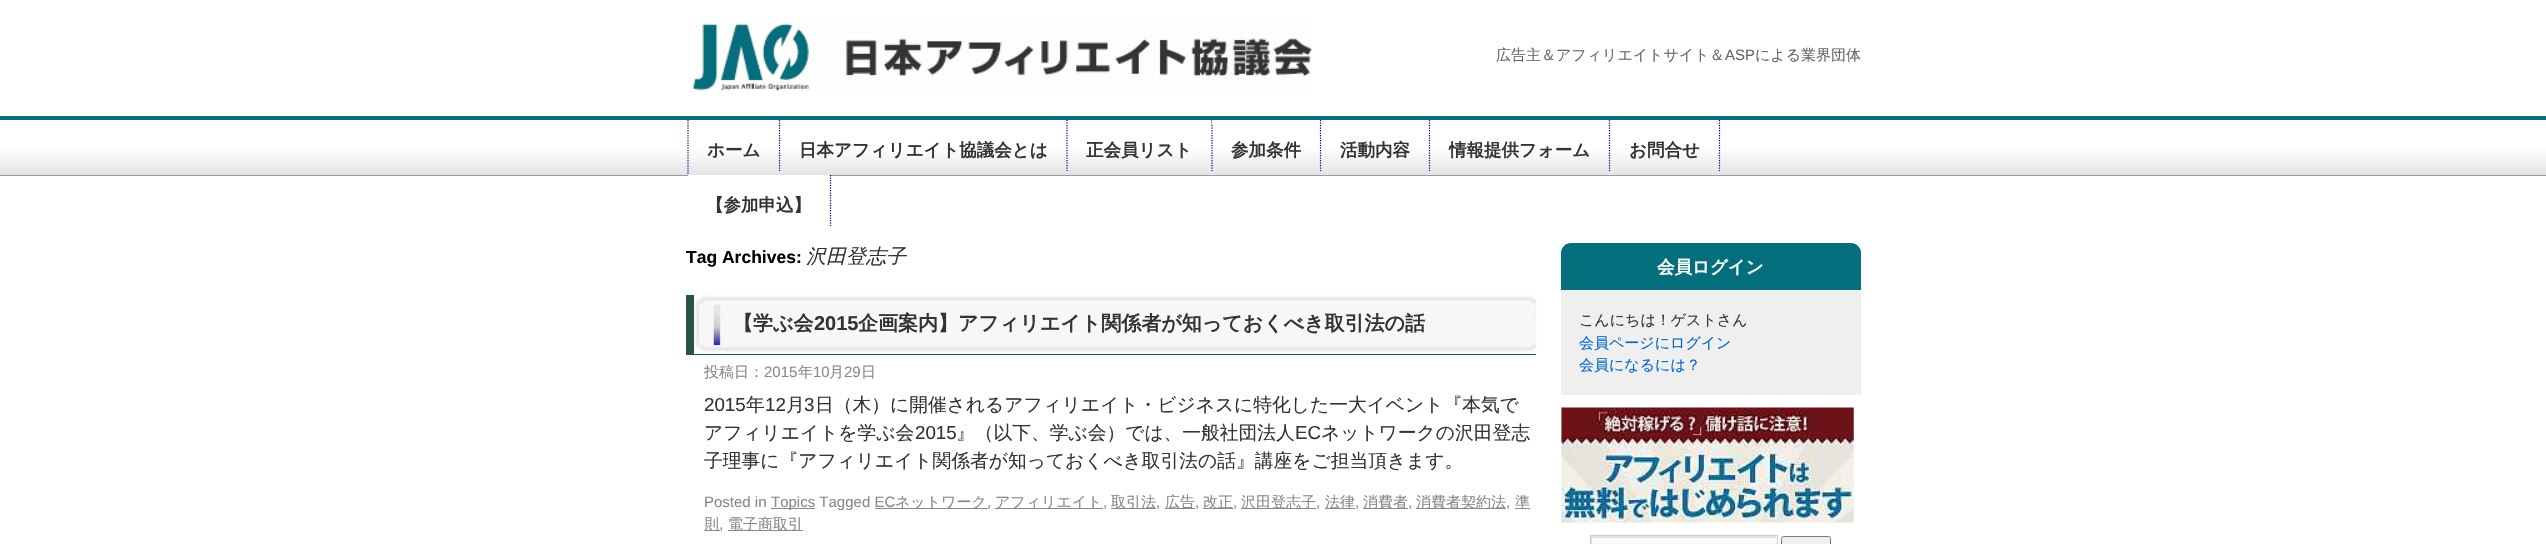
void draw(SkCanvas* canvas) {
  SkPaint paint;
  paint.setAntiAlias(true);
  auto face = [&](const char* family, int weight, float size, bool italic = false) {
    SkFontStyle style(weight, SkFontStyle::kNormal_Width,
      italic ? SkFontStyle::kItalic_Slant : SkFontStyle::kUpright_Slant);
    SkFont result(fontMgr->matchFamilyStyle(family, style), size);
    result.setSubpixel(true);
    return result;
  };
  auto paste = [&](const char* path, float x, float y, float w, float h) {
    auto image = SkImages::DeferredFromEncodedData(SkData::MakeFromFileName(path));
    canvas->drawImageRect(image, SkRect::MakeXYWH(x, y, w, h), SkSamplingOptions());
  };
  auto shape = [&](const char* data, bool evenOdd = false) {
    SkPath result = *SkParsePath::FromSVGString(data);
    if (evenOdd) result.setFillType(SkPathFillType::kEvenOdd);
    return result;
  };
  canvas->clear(0xffffffff);
  paste("img/1.png", 692, 23, 620, 68);
  {
    const SkColor colors[] = {0xffffffff, 0xffe4e4e4};
    const float stops[] = {0.5f, 1};
    const SkPoint ends[] = {{0, 120}, {0, 175}};
    paint.setShader(SkGradientShader::MakeLinear(ends, colors, stops, 2, SkTileMode::kClamp));
    paint.setAlpha(255);
  }
  canvas->drawRect(SkRect::MakeXYWH(0, 150, 2546, 25), paint);
  paint.setShader(nullptr);
  paint.setColor(0xff046e7c);
  canvas->drawRect(SkRect::MakeXYWH(0, 116, 2546, 4), paint);
  paint.setColor(0xff9b9b9b);
  canvas->drawRect(SkRect::MakeXYWH(0, 175, 2546, 1), paint);
  paint.setStroke(true);
  paint.setStrokeWidth(1.2f);
  paint.setColor(0xff000099);
  paint.setPathEffect(SkDashPathEffect::Make({{1.25f, 1.25f}}, 0));
  canvas->drawPath(shape("M688 120V175"), paint);
  paint.setPathEffect(nullptr);
  paint.setPathEffect(SkDashPathEffect::Make({{1.25f, 1.25f}}, 0));
  canvas->drawPath(shape("M779.5 120V171"), paint);
  paint.setPathEffect(nullptr);
  paint.setStroke(false);
  paint.setColor(0xffffffff);
  canvas->drawPath(shape("M780 120H1068L1066 124H780Z"), paint);
  paint.setStroke(true);
  paint.setColor(0xff000099);
  paint.setPathEffect(SkDashPathEffect::Make({{1.25f, 1.25f}}, 0));
  canvas->drawPath(shape("M1067 120V171"), paint);
  paint.setPathEffect(nullptr);
  paint.setPathEffect(SkDashPathEffect::Make({{1.25f, 1.25f}}, 0));
  canvas->drawPath(shape("M1212 120V171"), paint);
  paint.setPathEffect(nullptr);
  paint.setStroke(false);
  paint.setColor(0xffffffff);
  canvas->drawPath(shape("M1212 120H1321L1320 124H1212Z"), paint);
  paint.setStroke(true);
  paint.setColor(0xff000099);
  paint.setPathEffect(SkDashPathEffect::Make({{1.25f, 1.25f}}, 0));
  canvas->drawPath(shape("M1320.5 120V171"), paint);
  paint.setPathEffect(nullptr);
  paint.setStroke(false);
  paint.setColor(0xffffffff);
  canvas->drawPath(shape("M1321 120H1430L1429 124H1321Z"), paint);
  paint.setStroke(true);
  paint.setColor(0xff000099);
  paint.setPathEffect(SkDashPathEffect::Make({{1.25f, 1.25f}}, 0));
  canvas->drawPath(shape("M1429.5 120V171"), paint);
  paint.setPathEffect(nullptr);
  paint.setStroke(false);
  paint.setColor(0xffffffff);
  canvas->drawPath(shape("M1430 120H1610L1609 124H1430Z"), paint);
  paint.setStroke(true);
  paint.setColor(0xff000099);
  paint.setPathEffect(SkDashPathEffect::Make({{1.25f, 1.25f}}, 0));
  canvas->drawPath(shape("M1609.5 120V171"), paint);
  paint.setPathEffect(nullptr);
  paint.setStroke(false);
  paint.setColor(0xffffffff);
  canvas->drawPath(shape("M1610 120H1720L1719 124H1610Z"), paint);
  paint.setStroke(true);
  paint.setColor(0xff000099);
  paint.setPathEffect(SkDashPathEffect::Make({{1.25f, 1.25f}}, 0));
  canvas->drawPath(shape("M1719.5 120V171"), paint);
  paint.setPathEffect(nullptr);
  paint.setStroke(false);
  paint.setColor(0xffffffff);
  canvas->drawPath(shape("M688 175H831L830 179H688Z"), paint);
  paint.setStroke(true);
  paint.setColor(0xff000099);
  paint.setPathEffect(SkDashPathEffect::Make({{1.25f, 1.25f}}, 0));
  canvas->drawPath(shape("M830.5 175V226"), paint);
  paint.setPathEffect(nullptr);
  paste("img/2.png", 694, 295, 843, 58);
  paint.setStroke(false);
  {
    const struct { float x, y, w, h; SkColor color; } items[] = {
      {686, 354, 850, 1, 0xff295345},
      {686, 295, 8, 60, 0xff295345},
      {771, 508, 44, 1, 0xff888888},
      {875, 508, 113, 1, 0xff888888},
      {995, 508, 108, 1, 0xff888888},
      {1111, 508, 45, 1, 0xff888888},
      {1165, 508, 30, 1, 0xff888888},
      {1203, 508, 30, 1, 0xff888888},
      {1241, 508, 75, 1, 0xff888888},
      {1325, 508, 30, 1, 0xff888888},
      {1363, 508, 45, 1, 0xff888888},
      {1416, 508, 90, 1, 0xff888888},
      {1515, 508, 15, 1, 0xff888888},
      {705, 530, 15, 1, 0xff888888},
      {728, 530, 75, 1, 0xff888888},
    };
    for (auto [x, y, w, h, color] : items) {
      paint.setColor(color);
      canvas->drawRect(SkRect::MakeXYWH(x, y, w, h), paint);
    }
  }
  paint.setColor(0xff046e7c);
  canvas->drawPath(shape("M1571 243H1851C1856.5 243 1861 247.5 1861 253V290H1561V253C1561 247.5 1565.5 243 1571 243Z"), paint);
  paint.setColor(0xffefefef);
  canvas->drawRect(SkRect::MakeXYWH(1561, 290, 300, 105), paint);
  paste("img/3.png", 1561, 407, 293, 116);
  paint.setColor(0xfff9f9f9);
  canvas->drawRect(SkRect::MakeXYWH(1592, 536, 185, 8), paint);
  canvas->save();
  canvas->clipRect(SkRect::MakeXYWH(1591, 536, 185, 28));
  paint.setColor(0xffe0e0e0);
  canvas->drawPath(shape("M1468 412H1900V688H1468ZM1592 538H1778V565H1592Z", true), paint);
  canvas->restore();
  paint.setStroke(true);
  paint.setStrokeWidth(1);
  paint.setColor(0xffcccccc);
  canvas->drawRect(SkRect::MakeXYWH(1590.5f, 535.5f, 187, 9), paint);
  paint.setStroke(false);
  paint.setColor(0xffefefef);
  canvas->drawRoundRect(SkRect::MakeXYWH(1781.5f, 536.5f, 49, 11), 2, 2, paint);
  paint.setStroke(true);
  paint.setColor(0xff767676);
  canvas->drawRoundRect(SkRect::MakeXYWH(1781.5f, 536.5f, 49, 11), 2, 2, paint);
  auto f0 = face("WenQuanYi Zen Hei", 500, 15);
  paint.setStroke(false);
  paint.setColor(0xff666666);
  canvas->drawString("広告主＆アフィリエイトサイト＆", 1496, 60, f0, paint);
  auto f1 = face("Liberation Sans", 400, 15);
  canvas->drawString("ASP", 1725, 60, f1, paint);
  canvas->drawString("による業界団体", 1755, 60, f0, paint);
  auto f2 = face("WenQuanYi Zen Hei", 700, 17.5f);
  paint.setColor(0xff333333);
  {
    const struct { const char* s; float x, y; } items[] = {
      {"ホーム", 707, 156},
      {"日本アフィリエイト協議会とは", 799, 156},
      {"正会員リスト", 1086, 156},
      {"参加条件", 1231, 156},
      {"活動内容", 1340, 156},
      {"情報提供フォーム", 1449, 156},
      {"お問合せ", 1629, 156},
      {"【参加申込】", 706, 211},
    };
    for (auto [s, x, y] : items) {
      canvas->drawString(s, x, y, f2, paint);
    }
  }
  auto f3 = face("Liberation Sans", 700, 17.5f);
  paint.setColor(0xff000000);
  canvas->drawString("Tag Archives:", 686, 263, f3, paint);
  auto f4 = face("WenQuanYi Zen Hei", 500, 20, true);
  paint.setColor(0xff333333);
  canvas->drawString("沢田登志子", 806, 263, f4, paint);
  auto f5 = face("WenQuanYi Zen Hei", 700, 20);
  canvas->drawString("【学ぶ会", 733, 330, f5, paint);
  auto f6 = face("Liberation Sans", 700, 20);
  canvas->drawString("2015", 814, 330, f6, paint);
  canvas->drawString("企画案内】アフィリエイト関係者が知っておくべき取引法の話", 858, 330, f5, paint);
  paint.setColor(0xff888888);
  canvas->drawString("投稿日：", 704, 377, f0, paint);
  canvas->drawString("2015", 764, 377, f1, paint);
  canvas->drawString("年", 798, 377, f0, paint);
  canvas->drawString("10", 813, 377, f1, paint);
  canvas->drawString("月", 829, 377, f0, paint);
  canvas->drawString("29", 844, 377, f1, paint);
  canvas->drawString("日", 861, 377, f0, paint);
  auto f7 = face("Liberation Sans", 400, 18.75f);
  paint.setColor(0xff333333);
  canvas->drawString("2015", 704, 411, f7, paint);
  auto f8 = face("WenQuanYi Zen Hei", 500, 18.75f);
  canvas->drawString("年", 746, 411, f8, paint);
  canvas->drawString("12", 765, 411, f7, paint);
  canvas->drawString("月", 786, 411, f8, paint);
  canvas->drawString("3", 804, 411, f7, paint);
  canvas->drawString("日（木）に開催されるアフィリエイト・ビジネスに特化した一大イベント『本気で", 815, 411, f8, paint);
  canvas->drawString("アフィリエイトを学ぶ会", 704, 439, f8, paint);
  canvas->drawString("2015", 915, 439, f7, paint);
  canvas->drawString("』（以下、学ぶ会）では、一般社団法人", 956, 439, f8, paint);
  canvas->drawString("EC", 1295, 439, f7, paint);
  canvas->drawString("ネットワークの沢田登志", 1321, 439, f8, paint);
  canvas->drawString("子理事に『アフィリエイト関係者が知っておくべき取引法の話』講座をご担当頂きます。", 704, 467, f8, paint);
  paint.setColor(0xff888888);
  canvas->drawString("Posted in", 704, 507, f1, paint);
  canvas->drawString("Topics Tagged EC", 771, 507, f1, paint);
  canvas->drawString("ネットワーク", 895, 507, f0, paint);
  canvas->drawString(",", 987, 507, f1, paint);
  canvas->drawString("アフィリエイト", 995, 507, f0, paint);
  canvas->drawString(",", 1103, 507, f1, paint);
  canvas->drawString("取引法", 1111, 507, f0, paint);
  canvas->drawString(",", 1156, 507, f1, paint);
  canvas->drawString("広告", 1165, 507, f0, paint);
  canvas->drawString(",", 1195, 507, f1, paint);
  canvas->drawString("改正", 1203, 507, f0, paint);
  canvas->drawString(",", 1233, 507, f1, paint);
  canvas->drawString("沢田登志子", 1241, 507, f0, paint);
  canvas->drawString(",", 1316, 507, f1, paint);
  canvas->drawString("法律", 1325, 507, f0, paint);
  canvas->drawString(",", 1355, 507, f1, paint);
  canvas->drawString("消費者", 1363, 507, f0, paint);
  canvas->drawString(",", 1408, 507, f1, paint);
  canvas->drawString("消費者契約法", 1416, 507, f0, paint);
  canvas->drawString(",", 1506, 507, f1, paint);
  canvas->drawString("準", 1515, 507, f0, paint);
  canvas->drawString("則", 704, 529, f0, paint);
  canvas->drawString(",", 719, 529, f1, paint);
  canvas->drawString("電子商取引", 728, 529, f0, paint);
  paint.setColor(0xffffffff);
  canvas->drawString("会員ログイン", 1657, 273, f2, paint);
  paint.setColor(0xff333333);
  canvas->drawString("こんにちは！ゲストさん", 1579, 325, f0, paint);
  paint.setColor(0xff0066cc);
  canvas->drawString("会員ページにログイン", 1579, 348, f0, paint);
  canvas->drawString("会員になるには？", 1579, 370, f0, paint);
}
